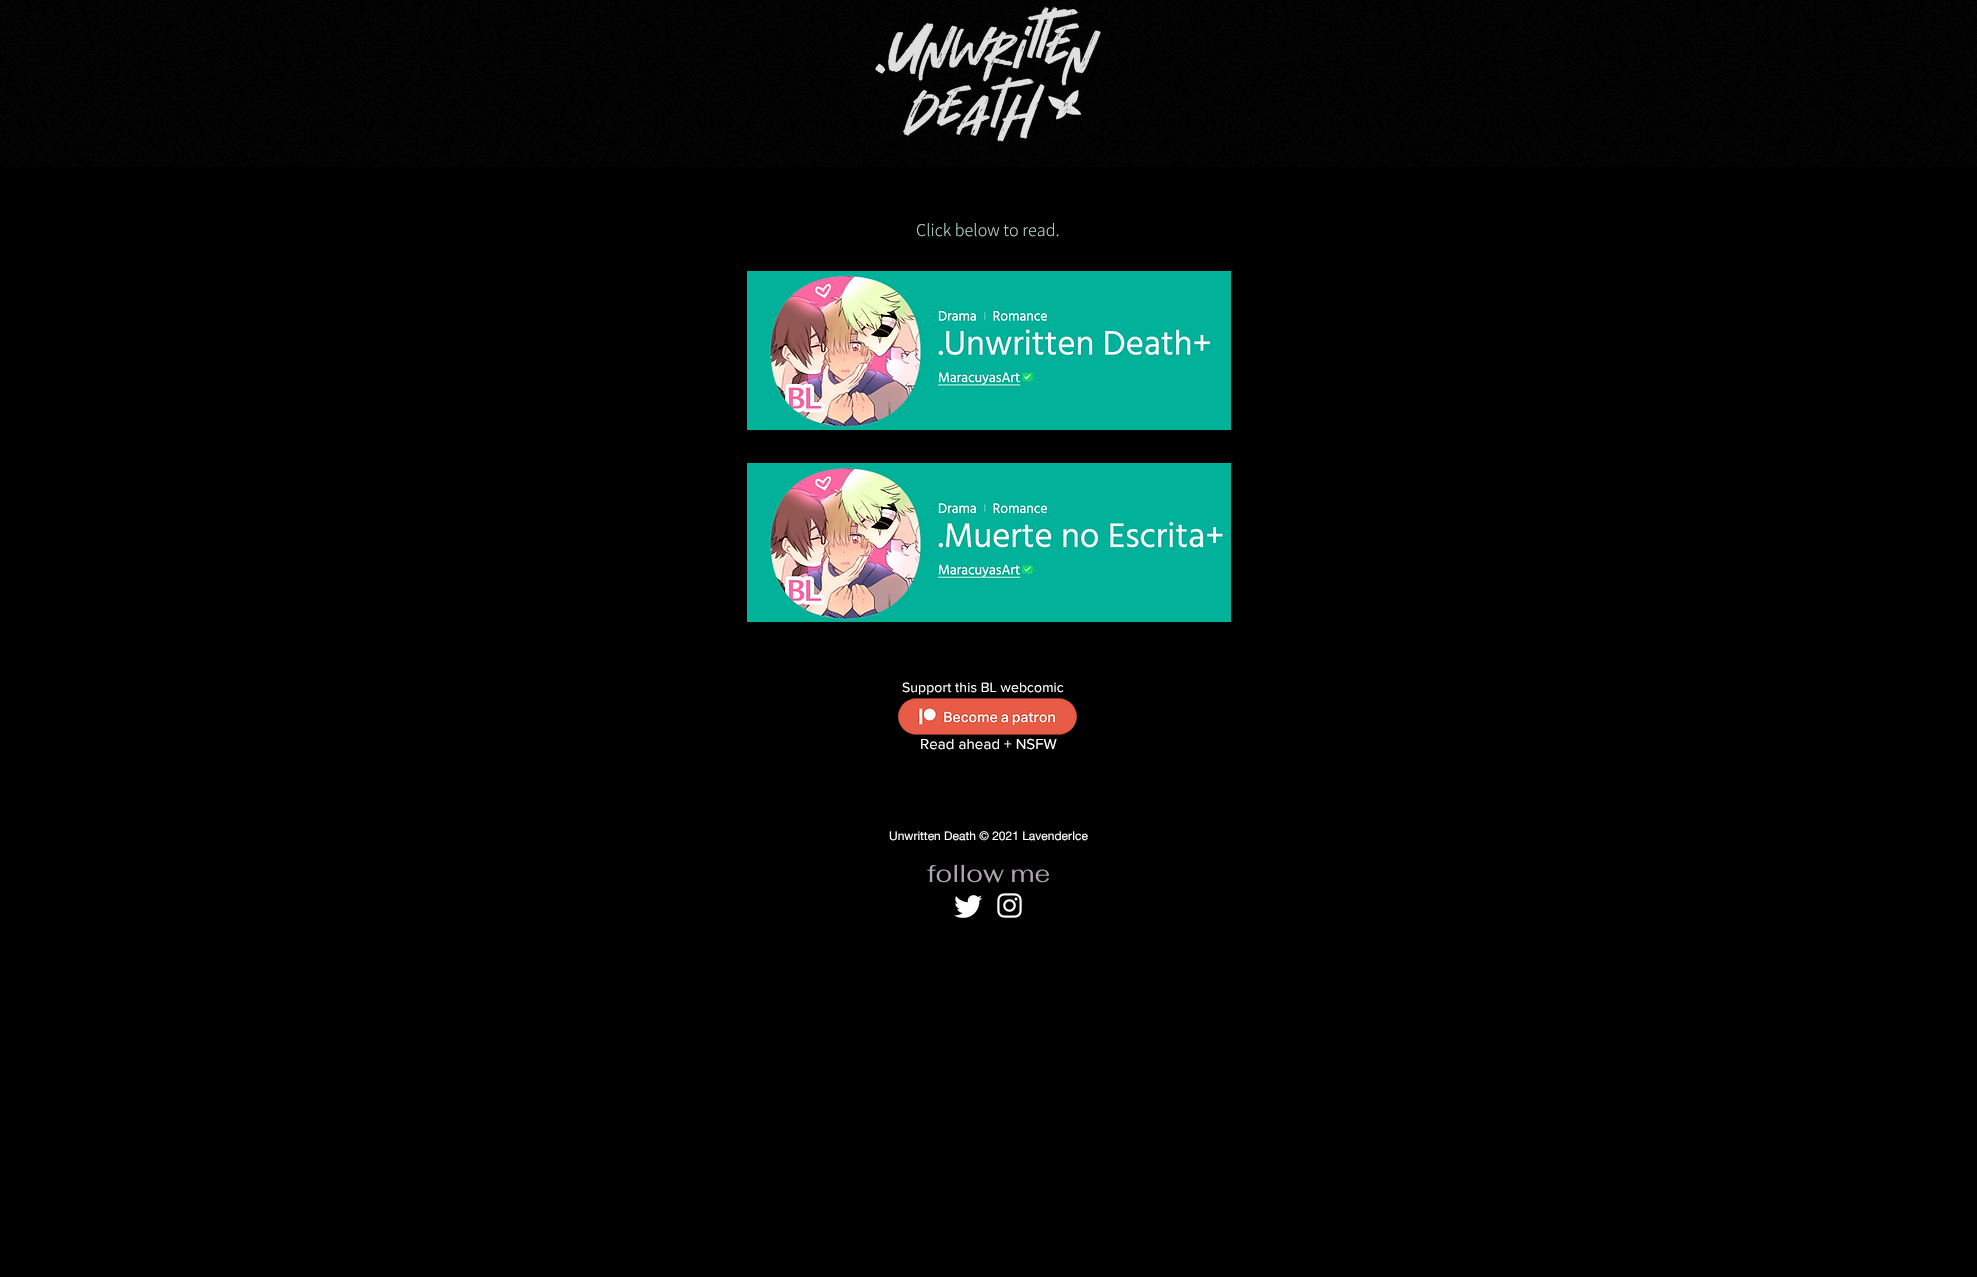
void draw(SkCanvas* canvas) {
  SkPaint paint;
  paint.setAntiAlias(true);
  auto face = [&](const char* family, int weight, float size, bool italic = false) {
    SkFontStyle style(weight, SkFontStyle::kNormal_Width,
      italic ? SkFontStyle::kItalic_Slant : SkFontStyle::kUpright_Slant);
    SkFont result(fontMgr->matchFamilyStyle(family, style), size);
    result.setSubpixel(true);
    return result;
  };
  auto writeSpaced = [&](const char* s, float x, float y, const SkFont& font, const SkPaint& ink, float letter, float word) {
    std::vector<SkGlyphID> glyphs(font.countText(s, strlen(s), SkTextEncoding::kUTF8));
    std::vector<float> xs(glyphs.size());
    font.textToGlyphs(s, strlen(s), SkTextEncoding::kUTF8, glyphs);
    font.getXPos(glyphs, xs, x);
    float extra = 0;
    for (size_t i = 0; i < glyphs.size(); i++) {
      xs[i] += extra;
      extra += letter + word * (glyphs[i] == font.unicharToGlyph(' '));
    }
    canvas->drawTextBlob(SkTextBlob::MakeFromPosHGlyphs(glyphs, xs, y, font), 0, 0, ink);
  };
  auto paste = [&](const char* path, float x, float y, float w, float h) {
    auto image = SkImages::DeferredFromEncodedData(SkData::MakeFromFileName(path));
    canvas->drawImageRect(image, SkRect::MakeXYWH(x, y, w, h), SkSamplingOptions());
  };
  canvas->clear(0xff000000);
  paste("img/1.png", 0, 0, 1977, 167);
  paste("img/2.png", 875, 6, 226, 136);
  paste("img/3.png", 747, 271, 484, 159);
  paste("img/4.png", 747, 463, 484, 159);
  paste("img/5.png", 898, 698, 179, 37);
  paste("img/6.png", 954, 894, 29, 25);
  paste("img/7.png", 997, 893, 25, 25);
  auto f0 = face("Assistant", 300, 18);
  paint.setColor(0xffb1d3c5);
  canvas->drawString("Click below to read.", 916, 236, f0, paint);
  auto f1 = face("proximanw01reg", 400, 14);
  paint.setColor(0xffffffff);
  writeSpaced("Support this BL webcomic", 902, 692, f1, paint, 0.1f, 0);
  auto f2 = face("proximanw01reg", 400, 15);
  writeSpaced("Read ahead + NSFW", 920, 749, f2, paint, 0.1f, 0);
  auto f3 = face("helvetica neue", 400, 12);
  canvas->drawString("Unwritten Death © 2021 LavenderIce", 889, 840, f3, paint);
  auto f4 = face("Fahkwang", 400, 25);
  paint.setColor(0xffaea5b0);
  canvas->drawString("follow me", 927, 882, f4, paint);
}
